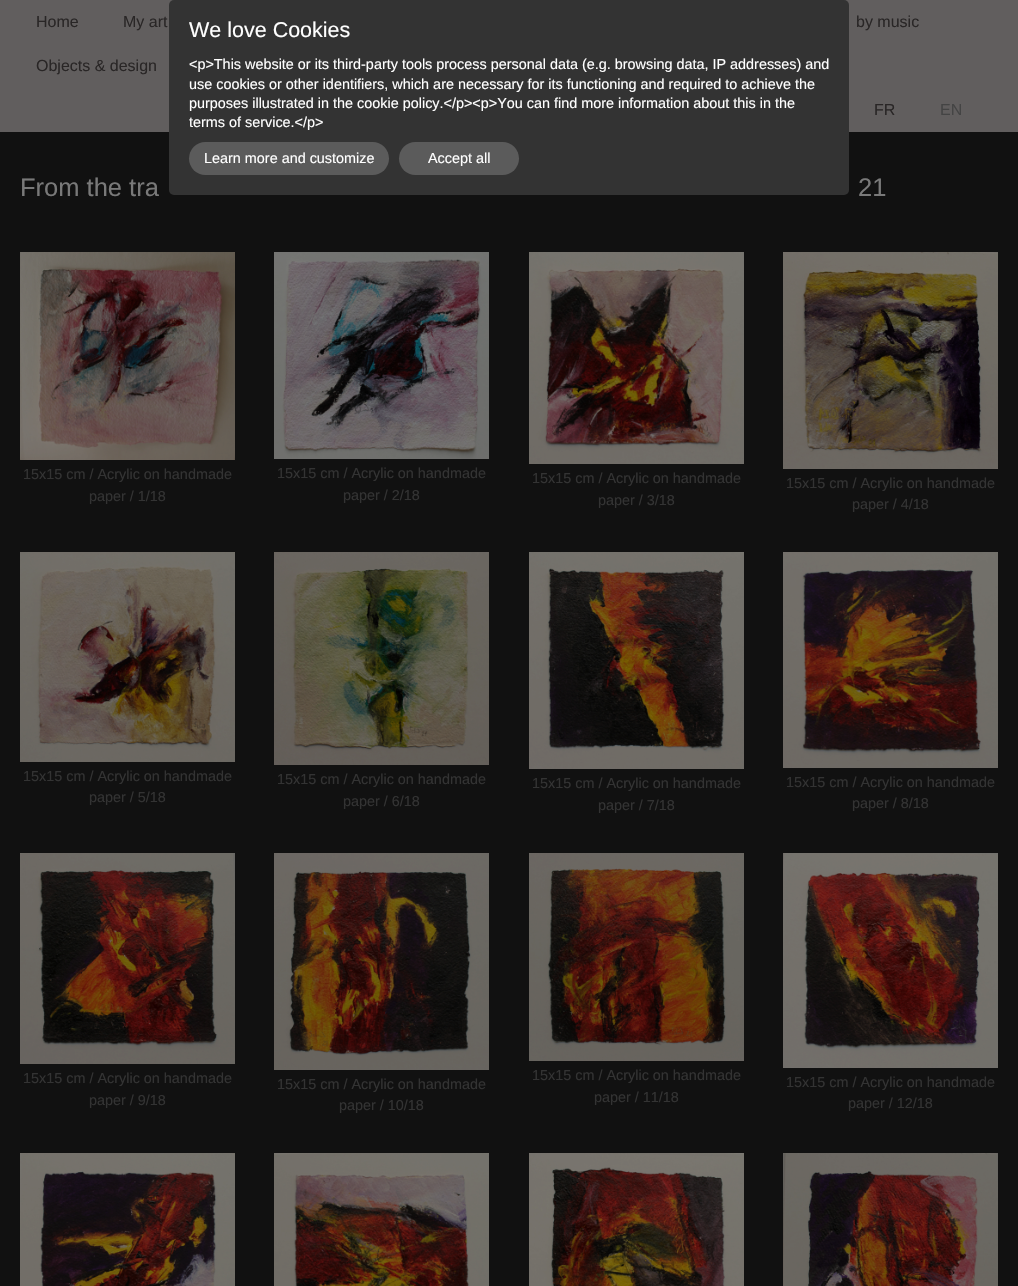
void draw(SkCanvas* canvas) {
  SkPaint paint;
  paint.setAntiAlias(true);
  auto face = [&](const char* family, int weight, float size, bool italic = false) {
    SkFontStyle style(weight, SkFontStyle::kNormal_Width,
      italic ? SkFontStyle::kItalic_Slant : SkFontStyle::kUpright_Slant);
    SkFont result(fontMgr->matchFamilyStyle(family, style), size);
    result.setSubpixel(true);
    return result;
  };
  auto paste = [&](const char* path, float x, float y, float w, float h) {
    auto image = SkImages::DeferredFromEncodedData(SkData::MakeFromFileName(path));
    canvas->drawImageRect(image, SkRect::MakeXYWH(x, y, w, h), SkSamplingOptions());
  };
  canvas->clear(0xff111111);
  paint.setColor(0xff615e5e);
  canvas->drawRect(SkRect::MakeXYWH(0, 0, 1018, 132), paint);
  paste("img/1.png", 20, 252, 215, 208);
  paste("img/2.png", 274, 252, 215, 207);
  paste("img/3.png", 529, 252, 215, 212);
  paste("img/4.png", 783, 252, 215, 217);
  paste("img/5.png", 20, 552, 215, 210);
  paste("img/6.png", 274, 552, 215, 213);
  paste("img/7.png", 529, 552, 215, 217);
  paste("img/8.png", 783, 552, 215, 216);
  paste("img/9.png", 20, 853, 215, 211);
  paste("img/10.png", 274, 853, 215, 217);
  paste("img/11.png", 529, 853, 215, 208);
  paste("img/12.png", 783, 853, 215, 215);
  paste("img/13.png", 20, 1153, 215, 133);
  paste("img/14.png", 274, 1153, 215, 133);
  paste("img/15.png", 529, 1153, 215, 133);
  paste("img/16.png", 783, 1153, 215, 133);
  paint.setColor(0xff333333);
  canvas->drawRoundRect(SkRect::MakeXYWH(169, 0, 680, 195), 5, 5, paint);
  paint.setColor(0xff5b5b5b);
  canvas->drawRoundRect(SkRect::MakeXYWH(189, 142, 200, 33), 16.5f, 16.5f, paint);
  canvas->drawRoundRect(SkRect::MakeXYWH(399, 142, 120, 33), 16.5f, 16.5f, paint);
  auto f0 = face("Liberation Sans", 400, 16);
  paint.setColor(0xff292626);
  {
    const struct { const char* s; float x, y; } items[] = {
      {"Home", 36, 27},
      {"My art", 123, 27},
      {"by music", 856, 27},
      {"Objects & design", 36, 71},
      {"FR", 874, 115},
    };
    for (auto [s, x, y] : items) {
      canvas->drawString(s, x, y, f0, paint);
    }
  }
  paint.setColor(0xff444444);
  canvas->drawString("EN", 940, 115, f0, paint);
  auto f1 = face("Liberation Sans", 400, 25.5f);
  paint.setColor(0xff797979);
  canvas->drawString("From the tra", 20, 196, f1, paint);
  canvas->drawString("21", 858, 196, f1, paint);
  auto f2 = face("Liberation Sans", 400, 14.4f);
  paint.setColor(0xff333333);
  {
    const struct { const char* s; float x, y; } items[] = {
      {"15x15 cm / Acrylic on handmade", 23, 479},
      {"paper / 1/18", 89, 501},
      {"15x15 cm / Acrylic on handmade", 277, 478},
      {"paper / 2/18", 343, 500},
      {"15x15 cm / Acrylic on handmade", 532, 483},
      {"paper / 3/18", 598, 505},
      {"15x15 cm / Acrylic on handmade", 786, 488},
      {"paper / 4/18", 852, 509},
      {"15x15 cm / Acrylic on handmade", 23, 781},
      {"paper / 5/18", 89, 802},
      {"15x15 cm / Acrylic on handmade", 277, 784},
      {"paper / 6/18", 343, 806},
      {"15x15 cm / Acrylic on handmade", 532, 788},
      {"paper / 7/18", 598, 810},
      {"15x15 cm / Acrylic on handmade", 786, 787},
      {"paper / 8/18", 852, 808},
      {"15x15 cm / Acrylic on handmade", 23, 1083},
      {"paper / 9/18", 89, 1105},
      {"15x15 cm / Acrylic on handmade", 277, 1089},
      {"paper / 10/18", 339, 1110},
      {"15x15 cm / Acrylic on handmade", 532, 1080},
      {"paper / 11/18", 594, 1102},
      {"15x15 cm / Acrylic on handmade", 786, 1087},
      {"paper / 12/18", 848, 1108},
    };
    for (auto [s, x, y] : items) {
      canvas->drawString(s, x, y, f2, paint);
    }
  }
  auto f3 = face("Liberation Sans", 400, 21.5f);
  paint.setColor(0xffffffff);
  canvas->drawString("We love Cookies", 189, 37, f3, paint);
  {
    const struct { const char* s; float x, y; } items[] = {
      {"<p>This website or its third-party tools process personal data (e.g. browsing data, IP addresses) and", 189, 69},
      {"use cookies or other identifiers, which are necessary for its functioning and required to achieve the", 189, 89},
      {"purposes illustrated in the cookie policy.</p><p>You can find more information about this in the", 189, 108},
      {"terms of service.</p>", 189, 127},
      {"Learn more and customize", 204, 163},
      {"Accept all", 428, 163},
    };
    for (auto [s, x, y] : items) {
      canvas->drawString(s, x, y, f2, paint);
    }
  }
}
